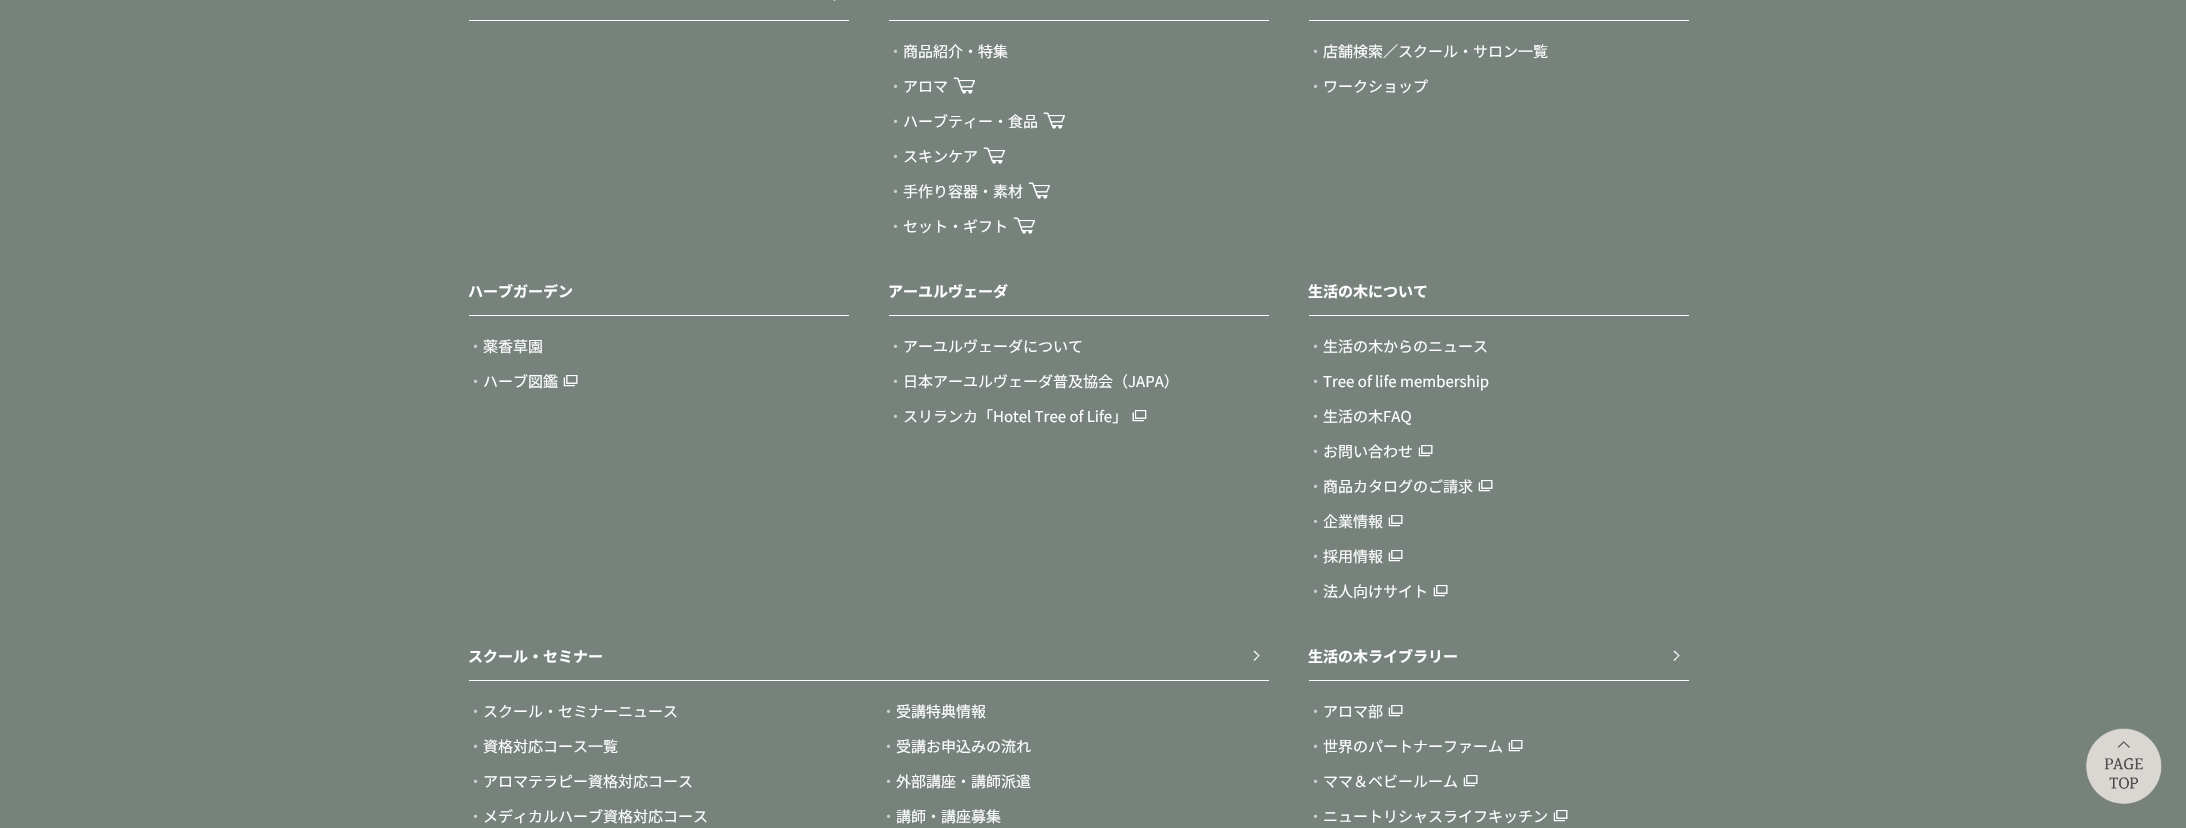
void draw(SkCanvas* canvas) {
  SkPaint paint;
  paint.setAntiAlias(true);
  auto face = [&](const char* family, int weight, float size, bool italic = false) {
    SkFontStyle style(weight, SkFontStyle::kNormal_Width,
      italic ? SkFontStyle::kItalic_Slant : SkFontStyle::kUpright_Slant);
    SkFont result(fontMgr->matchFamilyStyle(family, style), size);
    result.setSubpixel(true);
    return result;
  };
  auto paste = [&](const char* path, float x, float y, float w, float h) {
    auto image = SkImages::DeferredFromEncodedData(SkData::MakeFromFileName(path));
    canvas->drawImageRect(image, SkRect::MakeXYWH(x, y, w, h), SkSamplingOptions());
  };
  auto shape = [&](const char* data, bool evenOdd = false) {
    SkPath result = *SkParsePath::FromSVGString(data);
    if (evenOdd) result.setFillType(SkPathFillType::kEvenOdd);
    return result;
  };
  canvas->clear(0xff76827b);
  paint.setColor(0xffffffff);
  canvas->drawRect(SkRect::MakeXYWH(469, 20, 380, 1), paint);
  canvas->drawPath(shape("M839-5L839.5-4.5L834.5 1L833.5 0Z"), paint);
  canvas->drawRect(SkRect::MakeXYWH(889, 20, 380, 1), paint);
  paste("img/1.png", 953, 77, 22, 17);
  paste("img/2.png", 1043, 112, 22, 17);
  paste("img/1.png", 983, 147, 22, 17);
  paste("img/2.png", 1028, 182, 22, 17);
  paste("img/2.png", 1013, 217, 22, 17);
  canvas->drawRect(SkRect::MakeXYWH(1309, 20, 380, 1), paint);
  canvas->drawRect(SkRect::MakeXYWH(469, 315, 380, 1), paint);
  paste("img/3.png", 563, 375, 15, 12);
  canvas->drawRect(SkRect::MakeXYWH(889, 315, 380, 1), paint);
  paste("img/4.png", 1132, 410, 15, 12);
  canvas->drawRect(SkRect::MakeXYWH(1309, 315, 380, 1), paint);
  paste("img/3.png", 1418, 445, 15, 12);
  paste("img/5.png", 1478, 480, 15, 12);
  paste("img/3.png", 1388, 515, 15, 12);
  paste("img/3.png", 1388, 550, 15, 12);
  paste("img/5.png", 1433, 585, 15, 12);
  canvas->drawRect(SkRect::MakeXYWH(469, 680, 800, 1), paint);
  canvas->drawPath(shape("M1254.5 650.5L1259.5 655.5L1259 656.5L1253.5 651.5Z"), paint);
  canvas->drawPath(shape("M1259 655L1259.5 655.5L1254.5 661L1253.5 660Z"), paint);
  canvas->drawRect(SkRect::MakeXYWH(1309, 680, 380, 1), paint);
  canvas->drawPath(shape("M1674.5 650.5L1679.5 655.5L1679 656.5L1673.5 651.5Z"), paint);
  canvas->drawPath(shape("M1679 655L1679.5 655.5L1674.5 661L1673.5 660Z"), paint);
  paste("img/3.png", 1388, 705, 15, 12);
  paste("img/5.png", 1508, 740, 15, 12);
  paste("img/5.png", 1463, 775, 15, 12);
  paste("img/3.png", 1553, 810, 15, 12);
  paste("img/6.png", 2086, 728, 76, 76);
  auto f0 = face("Noto Sans JP", 400, 15);
  paint.setColor(0xffcccccc);
  canvas->drawString("・", 888, 57, f0, paint);
  paint.setColor(0xffffffff);
  canvas->drawString("商品紹介・特集", 903, 57, f0, paint);
  paint.setColor(0xffcccccc);
  canvas->drawString("・", 888, 92, f0, paint);
  paint.setColor(0xffffffff);
  canvas->drawString("アロマ", 903, 92, f0, paint);
  paint.setColor(0xffcccccc);
  canvas->drawString("・", 888, 127, f0, paint);
  paint.setColor(0xffffffff);
  canvas->drawString("ハーブティー・食品", 903, 127, f0, paint);
  paint.setColor(0xffcccccc);
  canvas->drawString("・", 888, 162, f0, paint);
  paint.setColor(0xffffffff);
  canvas->drawString("スキンケア", 903, 162, f0, paint);
  paint.setColor(0xffcccccc);
  canvas->drawString("・", 888, 197, f0, paint);
  paint.setColor(0xffffffff);
  canvas->drawString("手作り容器・素材", 903, 197, f0, paint);
  paint.setColor(0xffcccccc);
  canvas->drawString("・", 888, 232, f0, paint);
  paint.setColor(0xffffffff);
  canvas->drawString("セット・ギフト", 903, 232, f0, paint);
  paint.setColor(0xffcccccc);
  canvas->drawString("・", 1308, 57, f0, paint);
  paint.setColor(0xffffffff);
  canvas->drawString("店舗検索／スクール・サロン一覧", 1323, 57, f0, paint);
  paint.setColor(0xffcccccc);
  canvas->drawString("・", 1308, 92, f0, paint);
  paint.setColor(0xffffffff);
  canvas->drawString("ワークショップ", 1323, 92, f0, paint);
  auto f1 = face("Noto Sans JP", 700, 15);
  canvas->drawString("ハーブガーデン", 468, 297, f1, paint);
  paint.setColor(0xffcccccc);
  canvas->drawString("・", 468, 352, f0, paint);
  paint.setColor(0xffffffff);
  canvas->drawString("薬香草園", 483, 352, f0, paint);
  paint.setColor(0xffcccccc);
  canvas->drawString("・", 468, 387, f0, paint);
  paint.setColor(0xffffffff);
  canvas->drawString("ハーブ図鑑", 483, 387, f0, paint);
  canvas->drawString("アーユルヴェーダ", 888, 297, f1, paint);
  paint.setColor(0xffcccccc);
  canvas->drawString("・", 888, 352, f0, paint);
  paint.setColor(0xffffffff);
  canvas->drawString("アーユルヴェーダについて", 903, 352, f0, paint);
  paint.setColor(0xffcccccc);
  canvas->drawString("・", 888, 387, f0, paint);
  paint.setColor(0xffffffff);
  canvas->drawString("日本アーユルヴェーダ普及協会（JAPA）", 903, 387, f0, paint);
  paint.setColor(0xffcccccc);
  canvas->drawString("・", 888, 422, f0, paint);
  paint.setColor(0xffffffff);
  canvas->drawString("スリランカ「Hotel Tree of Life」", 903, 422, f0, paint);
  canvas->drawString("生活の木について", 1308, 297, f1, paint);
  paint.setColor(0xffcccccc);
  canvas->drawString("・", 1308, 352, f0, paint);
  paint.setColor(0xffffffff);
  canvas->drawString("生活の木からのニュース", 1323, 352, f0, paint);
  paint.setColor(0xffcccccc);
  canvas->drawString("・", 1308, 387, f0, paint);
  paint.setColor(0xffffffff);
  canvas->drawString("Tree of life membership", 1323, 387, f0, paint);
  paint.setColor(0xffcccccc);
  canvas->drawString("・", 1308, 422, f0, paint);
  paint.setColor(0xffffffff);
  canvas->drawString("生活の木FAQ", 1323, 422, f0, paint);
  paint.setColor(0xffcccccc);
  canvas->drawString("・", 1308, 457, f0, paint);
  paint.setColor(0xffffffff);
  canvas->drawString("お問い合わせ", 1323, 457, f0, paint);
  paint.setColor(0xffcccccc);
  canvas->drawString("・", 1308, 492, f0, paint);
  paint.setColor(0xffffffff);
  canvas->drawString("商品カタログのご請求", 1323, 492, f0, paint);
  paint.setColor(0xffcccccc);
  canvas->drawString("・", 1308, 527, f0, paint);
  paint.setColor(0xffffffff);
  canvas->drawString("企業情報", 1323, 527, f0, paint);
  paint.setColor(0xffcccccc);
  canvas->drawString("・", 1308, 562, f0, paint);
  paint.setColor(0xffffffff);
  canvas->drawString("採用情報", 1323, 562, f0, paint);
  paint.setColor(0xffcccccc);
  canvas->drawString("・", 1308, 597, f0, paint);
  paint.setColor(0xffffffff);
  canvas->drawString("法人向けサイト", 1323, 597, f0, paint);
  canvas->drawString("スクール・セミナー", 468, 662, f1, paint);
  paint.setColor(0xffcccccc);
  canvas->drawString("・", 468, 717, f0, paint);
  paint.setColor(0xffffffff);
  canvas->drawString("スクール・セミナーニュース", 483, 717, f0, paint);
  paint.setColor(0xffcccccc);
  canvas->drawString("・", 468, 752, f0, paint);
  paint.setColor(0xffffffff);
  canvas->drawString("資格対応コース一覧", 483, 752, f0, paint);
  paint.setColor(0xffcccccc);
  canvas->drawString("・", 468, 787, f0, paint);
  paint.setColor(0xffffffff);
  canvas->drawString("アロマテラピー資格対応コース", 483, 787, f0, paint);
  paint.setColor(0xffcccccc);
  canvas->drawString("・", 468, 822, f0, paint);
  paint.setColor(0xffffffff);
  canvas->drawString("メディカルハーブ資格対応コース", 483, 822, f0, paint);
  paint.setColor(0xffcccccc);
  canvas->drawString("・", 881, 717, f0, paint);
  paint.setColor(0xffffffff);
  canvas->drawString("受講特典情報", 896, 717, f0, paint);
  paint.setColor(0xffcccccc);
  canvas->drawString("・", 881, 752, f0, paint);
  paint.setColor(0xffffffff);
  canvas->drawString("受講お申込みの流れ", 896, 752, f0, paint);
  paint.setColor(0xffcccccc);
  canvas->drawString("・", 881, 787, f0, paint);
  paint.setColor(0xffffffff);
  canvas->drawString("外部講座・講師派遣", 896, 787, f0, paint);
  paint.setColor(0xffcccccc);
  canvas->drawString("・", 881, 822, f0, paint);
  paint.setColor(0xffffffff);
  canvas->drawString("講師・講座募集", 896, 822, f0, paint);
  canvas->drawString("生活の木ライブラリー", 1308, 662, f1, paint);
  paint.setColor(0xffcccccc);
  canvas->drawString("・", 1308, 717, f0, paint);
  paint.setColor(0xffffffff);
  canvas->drawString("アロマ部", 1323, 717, f0, paint);
  paint.setColor(0xffcccccc);
  canvas->drawString("・", 1308, 752, f0, paint);
  paint.setColor(0xffffffff);
  canvas->drawString("世界のパートナーファーム", 1323, 752, f0, paint);
  paint.setColor(0xffcccccc);
  canvas->drawString("・", 1308, 787, f0, paint);
  paint.setColor(0xffffffff);
  canvas->drawString("ママ＆ベビールーム", 1323, 787, f0, paint);
  paint.setColor(0xffcccccc);
  canvas->drawString("・", 1308, 822, f0, paint);
  paint.setColor(0xffffffff);
  canvas->drawString("ニュートリシャスライフキッチン", 1323, 822, f0, paint);
}
